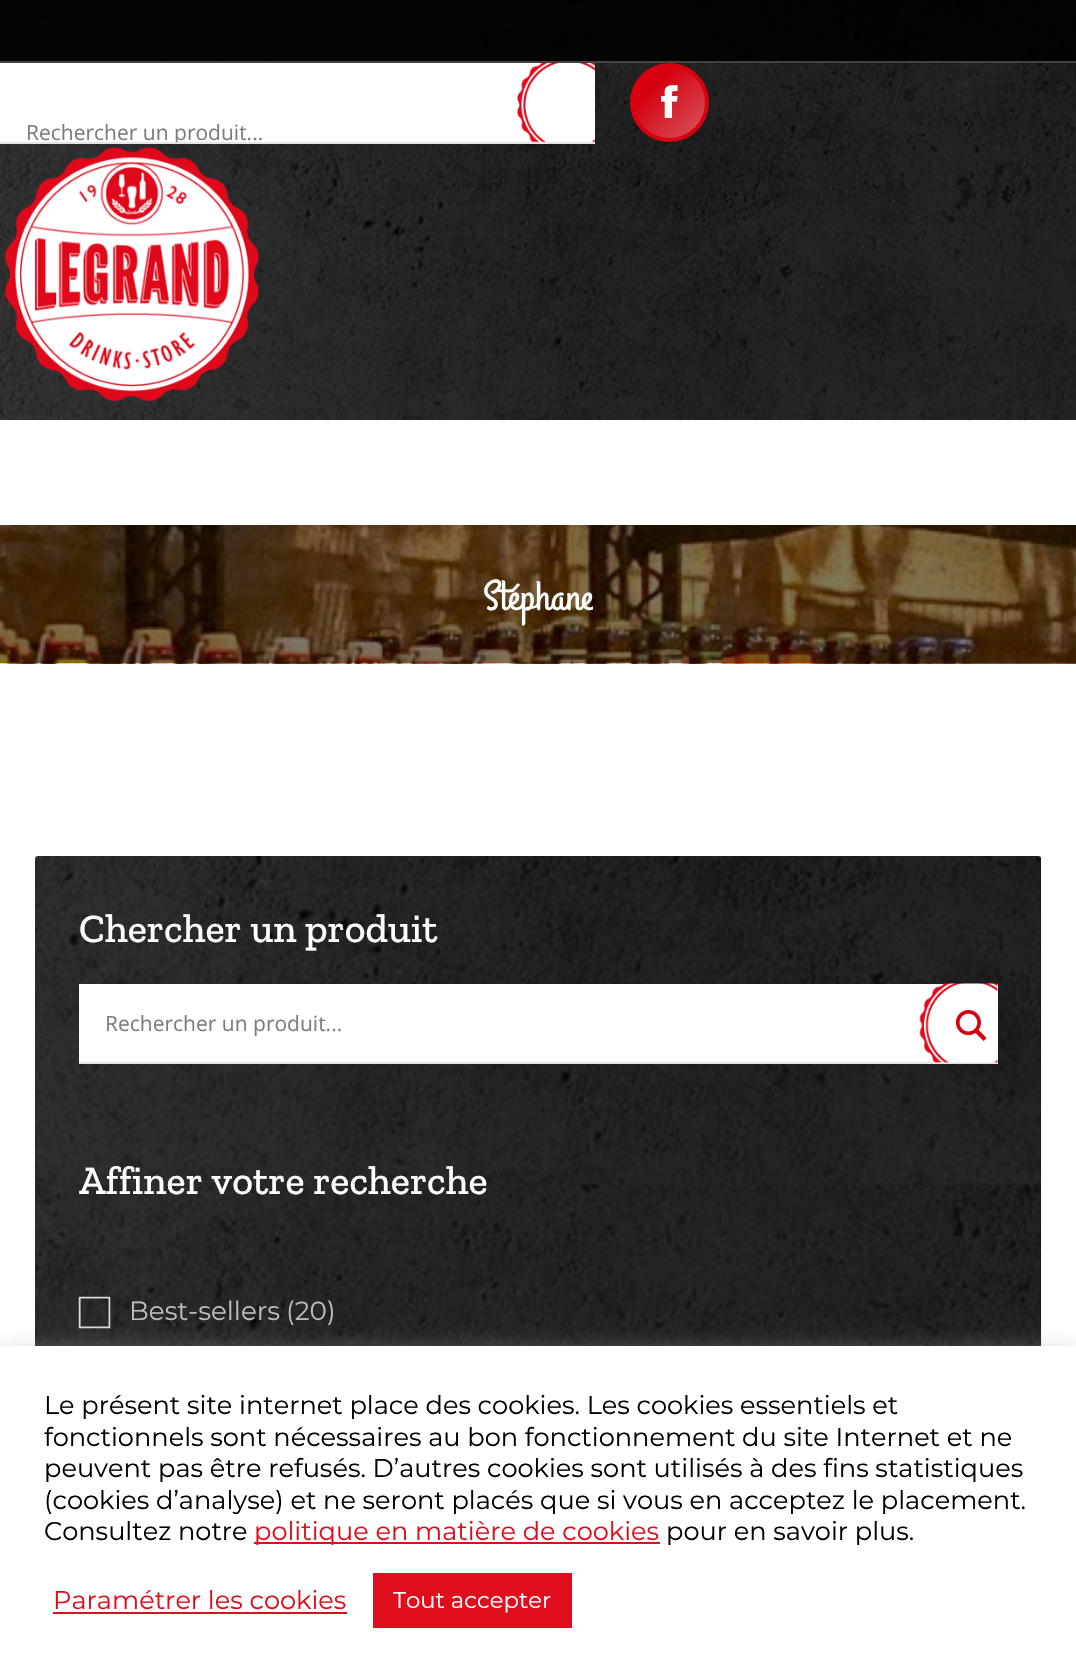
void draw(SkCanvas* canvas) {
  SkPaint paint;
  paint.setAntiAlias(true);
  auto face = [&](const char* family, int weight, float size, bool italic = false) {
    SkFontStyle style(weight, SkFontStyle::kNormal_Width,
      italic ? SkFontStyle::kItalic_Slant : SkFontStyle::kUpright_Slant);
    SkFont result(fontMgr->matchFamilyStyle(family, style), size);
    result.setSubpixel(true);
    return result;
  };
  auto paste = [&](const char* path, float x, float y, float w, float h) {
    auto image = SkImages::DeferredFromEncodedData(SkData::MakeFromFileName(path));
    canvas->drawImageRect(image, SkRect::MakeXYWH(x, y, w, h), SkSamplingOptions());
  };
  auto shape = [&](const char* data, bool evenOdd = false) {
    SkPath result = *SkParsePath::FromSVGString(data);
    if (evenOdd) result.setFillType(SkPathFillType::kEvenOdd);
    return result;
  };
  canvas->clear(0xffffffff);
  paste("img/1.png", 0, 0, 1076, 420);
  {
    const struct { float x, y, w, h; SkColor color; } items[] = {
      {0, 0, 1076, 63, 0xe6000000},
      {0, 61, 1076, 2, 0x40ffffff},
      {0, 142, 595, 2, 0xffe4e4e4},
      {0, 63, 595, 79, 0xffffffff},
    };
    for (auto [x, y, w, h, color] : items) {
      paint.setColor(color);
      canvas->drawRect(SkRect::MakeXYWH(x, y, w, h), paint);
    }
  }
  paste("img/2.png", 517, 63, 78, 79);
  {
    const SkColor colors[] = {0xffd6000f, 0xffd65e66};
    const float stops[] = {0.3f, 1};
    const SkPoint ends[] = {{630, 63}, {709, 142}};
    paint.setShader(SkGradientShader::MakeLinear(ends, colors, stops, 2, SkTileMode::kClamp));
    paint.setAlpha(255);
  }
  canvas->drawCircle(669.5f, 102.5f, 37.5f, paint);
  paint.setStroke(true);
  paint.setStrokeWidth(4);
  paint.setShader(nullptr);
  paint.setColor(0xffd6000f);
  canvas->drawCircle(669.5f, 102.5f, 37.5f, paint);
  paste("img/3.png", 661, 85, 17, 33);
  paste("img/4.png", 5, 147, 254, 254);
  paste("img/5.png", 0, 525, 1076, 139);
  paste("img/6.png", 35, 856, 1007, 490);
  paint.setStroke(false);
  paint.setColor(0xffe4e4e4);
  canvas->drawPath(shape("M79 1062V1064H998V985V1062Z"), paint);
  paint.setColor(0xffffffff);
  canvas->drawRect(SkRect::MakeXYWH(79, 984, 919, 78), paint);
  paste("img/7.png", 919, 983, 79, 80);
  paste("img/8.png", 955, 1010, 32, 31);
  paint.setColor(0x1f333333);
  canvas->drawRect(SkRect::MakeXYWH(345, 1106, 660, 2), paint);
  canvas->drawRect(SkRect::MakeXYWH(63, 1236, 978, 2), paint);
  paste("img/9.png", 78, 1296, 33, 33);
  paint.setColor(0x4dacabab);
  paint.setMaskFilter(SkMaskFilter::MakeBlur(kNormal_SkBlurStyle, 9));
  canvas->drawRect(SkRect::MakeXYWH(0, 1344, 1076, 334), paint);
  paint.setMaskFilter(nullptr);
  {
    const struct { float x, y, w, h; SkColor color; } items[] = {
      {0, 1346, 1076, 333, 0xffffffff},
      {254, 1542, 406, 2, 0xffdf0e1d},
      {53, 1612, 294, 2, 0xffdf0e1d},
      {373, 1573, 199, 55, 0xffdf0e1d},
    };
    for (auto [x, y, w, h, color] : items) {
      paint.setColor(color);
      canvas->drawRect(SkRect::MakeXYWH(x, y, w, h), paint);
    }
  }
  canvas->save();
  canvas->clipRect(SkRect::MakeXYWH(26, 117, 482, 25));
  auto f0 = face("Open Sans", 400, 21);
  paint.setColor(0xff7d7d7d);
  canvas->drawString("Rechercher un produit...", 26, 140, f0, paint);
  canvas->restore();
  canvas->save();
  canvas->clipRect(SkRect::MakeXYWH(483, 569, 110, 59));
  auto f1 = face("Grand Hotel", 400, 42);
  paint.setColor(0xffffffff);
  canvas->drawString("Stéphane", 483, 609, f1, paint);
  canvas->restore();
  auto f2 = face("Zilla Slab", 500, 40.25f);
  canvas->drawString("Chercher un produit", 79, 942, f2, paint);
  paint.setColor(0xff7d7d7d);
  canvas->drawString("Rechercher un produit...", 105, 1031, f0, paint);
  paint.setColor(0xffffffff);
  canvas->drawString("Affiner votre recherche", 79, 1194, f2, paint);
  auto f3 = face("Montserrat", 400, 26.25f);
  paint.setColor(0xffbcbcbc);
  canvas->drawString("Best-sellers", 129, 1320, f3, paint);
  canvas->drawString("(20)", 286, 1320, f3, paint);
  auto f4 = face("Montserrat", 400, 25.65f);
  paint.setColor(0xff000000);
  {
    const struct { const char* s; float x, y; } items[] = {
      {"Le présent site internet place des cookies. Les cookies essentiels et", 44, 1414},
      {"fonctionnels sont nécessaires au bon fonctionnement du site Internet et ne", 44, 1446},
      {"peuvent pas être refusés. D’autres cookies sont utilisés à des fins statistiques", 44, 1477},
      {"(cookies d’analyse) et ne seront placés que si vous en acceptez le placement.", 44, 1509},
      {"Consultez notre", 44, 1540},
    };
    for (auto [s, x, y] : items) {
      canvas->drawString(s, x, y, f4, paint);
    }
  }
  paint.setColor(0xffdf0e1d);
  canvas->drawString("politique en matière de cookies", 254, 1540, f4, paint);
  paint.setColor(0xff000000);
  canvas->drawString("pour en savoir plus.", 666, 1540, f4, paint);
  paint.setColor(0xffdf0e1d);
  canvas->drawString("Paramétrer les cookies", 53, 1609, f4, paint);
  auto f5 = face("Montserrat", 400, 22.75f);
  paint.setColor(0xffffffff);
  canvas->drawString("Tout accepter", 393, 1608, f5, paint);
}
